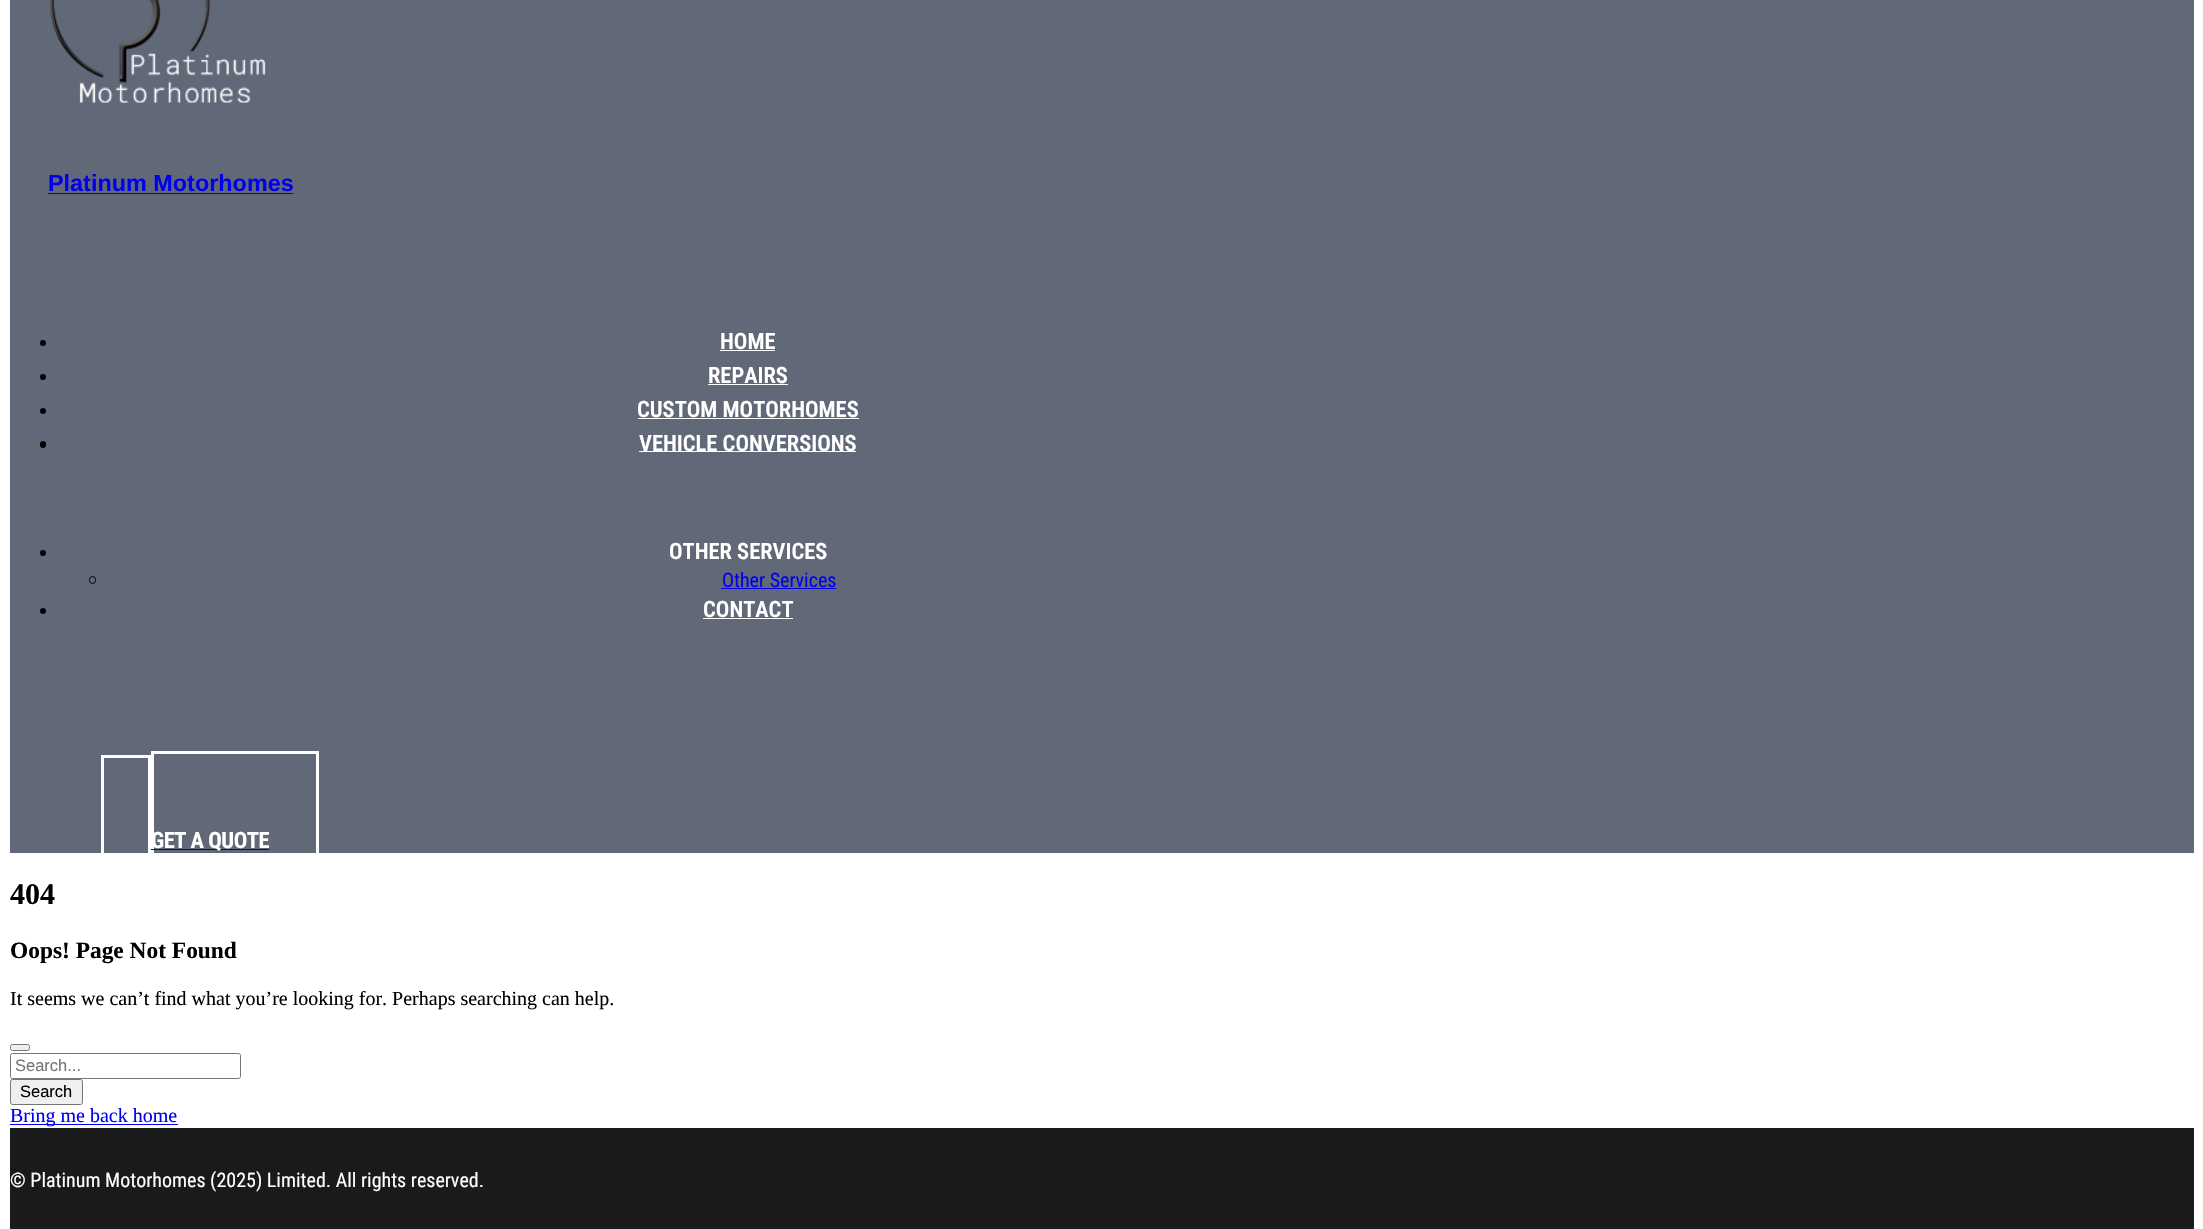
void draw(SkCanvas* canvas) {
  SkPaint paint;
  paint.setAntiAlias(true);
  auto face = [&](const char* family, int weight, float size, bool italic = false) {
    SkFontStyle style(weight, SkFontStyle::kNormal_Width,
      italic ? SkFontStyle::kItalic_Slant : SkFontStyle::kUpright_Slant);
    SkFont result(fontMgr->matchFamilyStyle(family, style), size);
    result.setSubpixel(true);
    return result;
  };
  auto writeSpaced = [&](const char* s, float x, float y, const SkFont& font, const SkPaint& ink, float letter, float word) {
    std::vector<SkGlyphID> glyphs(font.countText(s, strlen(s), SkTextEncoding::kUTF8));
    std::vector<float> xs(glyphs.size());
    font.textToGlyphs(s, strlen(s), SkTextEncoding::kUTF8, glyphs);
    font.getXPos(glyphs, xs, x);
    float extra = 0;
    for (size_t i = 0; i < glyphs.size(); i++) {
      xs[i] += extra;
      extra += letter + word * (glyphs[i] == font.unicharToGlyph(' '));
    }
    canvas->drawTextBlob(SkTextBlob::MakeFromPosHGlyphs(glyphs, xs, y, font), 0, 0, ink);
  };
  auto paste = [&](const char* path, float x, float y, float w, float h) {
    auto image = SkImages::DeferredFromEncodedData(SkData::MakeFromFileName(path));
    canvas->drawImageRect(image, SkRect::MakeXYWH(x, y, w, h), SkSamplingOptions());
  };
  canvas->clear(0xffffffff);
  paint.setColor(0xff616979);
  canvas->drawRect(SkRect::MakeXYWH(10, 0, 2184, 853), paint);
  paste("img/1.png", 50, 0, 216, 103);
  paint.setColor(0xff0000ee);
  canvas->drawRect(SkRect::MakeXYWH(48, 193, 245, 1), paint);
  paint.setColor(0xff000000);
  canvas->drawCircle(43, 343, 3, paint);
  paint.setColor(0xffffffff);
  canvas->drawRect(SkRect::MakeXYWH(720, 350, 55, 1), paint);
  paint.setColor(0xff000000);
  canvas->drawCircle(43, 377, 3, paint);
  paint.setColor(0xffffffff);
  canvas->drawRect(SkRect::MakeXYWH(708, 384, 80, 1), paint);
  paint.setColor(0xff000000);
  canvas->drawCircle(43, 411, 3, paint);
  paint.setColor(0xffffffff);
  canvas->drawRect(SkRect::MakeXYWH(638, 418, 221, 1), paint);
  paint.setColor(0xff000000);
  canvas->drawRoundRect(SkRect::MakeXYWH(40, 441, 6, 7), 3, 3, paint);
  paint.setColor(0xffffffff);
  canvas->drawRect(SkRect::MakeXYWH(639, 451, 217, 1), paint);
  paint.setColor(0xff000000);
  canvas->drawCircle(43, 553, 3, paint);
  paint.setStroke(true);
  paint.setStrokeWidth(1);
  canvas->drawRoundRect(SkRect::MakeXYWH(89.5f, 576.5f, 6, 7), 3, 3, paint);
  paint.setStroke(false);
  paint.setColor(0xff0000ee);
  canvas->drawRect(SkRect::MakeXYWH(721, 588, 115, 1), paint);
  paint.setColor(0xff000000);
  canvas->drawCircle(43, 611, 3, paint);
  paint.setColor(0xffffffff);
  canvas->drawRect(SkRect::MakeXYWH(703, 618, 90, 1), paint);
  paint.setStroke(true);
  paint.setStrokeWidth(3);
  canvas->drawRect(SkRect::MakeXYWH(102.5f, 756.5f, 47, 113), paint);
  canvas->drawRect(SkRect::MakeXYWH(152.5f, 752.5f, 165, 119), paint);
  paint.setStroke(false);
  paint.setColor(0xff0000ee);
  canvas->drawRect(SkRect::MakeXYWH(151, 849, 118, 1), paint);
  paint.setColor(0xffefefef);
  canvas->drawRoundRect(SkRect::MakeXYWH(10.5f, 1044.5f, 19, 6), 2, 2, paint);
  paint.setStroke(true);
  paint.setStrokeWidth(1);
  paint.setColor(0xff767676);
  canvas->drawRoundRect(SkRect::MakeXYWH(10.5f, 1044.5f, 19, 6), 2, 2, paint);
  canvas->drawRoundRect(SkRect::MakeXYWH(10.5f, 1053.5f, 230, 25), 2, 2, paint);
  paint.setStroke(false);
  paint.setColor(0xffefefef);
  canvas->drawRoundRect(SkRect::MakeXYWH(10.5f, 1079.5f, 72, 25), 2, 2, paint);
  paint.setStroke(true);
  paint.setColor(0xff767676);
  canvas->drawRoundRect(SkRect::MakeXYWH(10.5f, 1079.5f, 72, 25), 2, 2, paint);
  paint.setStroke(false);
  paint.setColor(0xff0000ee);
  canvas->drawRect(SkRect::MakeXYWH(10, 1124, 168, 1), paint);
  paint.setColor(0xff1a1a1a);
  canvas->drawRect(SkRect::MakeXYWH(10, 1128, 2184, 101), paint);
  auto f0 = face("Liberation Sans", 700, 23.4f);
  paint.setColor(0xff0000ee);
  canvas->drawString("Platinum Motorhomes", 48, 191, f0, paint);
  auto f1 = face("Roboto Condensed", 600, 22.5f);
  paint.setColor(0xffffffff);
  {
    const struct { const char* s; float x, y; } items[] = {
      {"HOME", 720, 349},
      {"REPAIRS", 708, 383},
      {"CUSTOM MOTORHOMES", 637, 417},
      {"VEHICLE CONVERSIONS", 639, 451},
      {"OTHER SERVICES", 669, 559},
    };
    for (auto [s, x, y] : items) {
      canvas->drawString(s, x, y, f1, paint);
    }
  }
  auto f2 = face("Roboto Condensed", 400, 20);
  paint.setColor(0xff0000ee);
  canvas->drawString("Other Services", 722, 587, f2, paint);
  paint.setColor(0xffffffff);
  canvas->drawString("CONTACT", 703, 617, f1, paint);
  auto f3 = face("Roboto Condensed", 700, 22.5f);
  writeSpaced("GET A QUOTE", 151, 848, f3, paint, -0.5f, 0);
  auto f4 = face("Liberation Serif", 700, 30);
  paint.setColor(0xff000000);
  canvas->drawString("404", 10, 904, f4, paint);
  auto f5 = face("Liberation Serif", 700, 23.4f);
  canvas->drawString("Oops! Page Not Found", 10, 958, f5, paint);
  auto f6 = face("Liberation Serif", 400, 20);
  canvas->drawString("It seems we can’t find what you’re looking for. Perhaps searching can help.", 10, 1005, f6, paint);
  auto f7 = face("Liberation Sans", 400, 16.5f);
  paint.setColor(0xff757575);
  canvas->drawString("Search...", 15, 1071, f7, paint);
  paint.setColor(0xff000000);
  canvas->drawString("Search", 20, 1097, f7, paint);
  paint.setColor(0xff0000ee);
  canvas->drawString("Bring me back home", 10, 1122, f6, paint);
  paint.setColor(0xffffffff);
  canvas->drawString("© Platinum Motorhomes (2025) Limited. All rights reserved.", 10, 1187, f2, paint);
}
